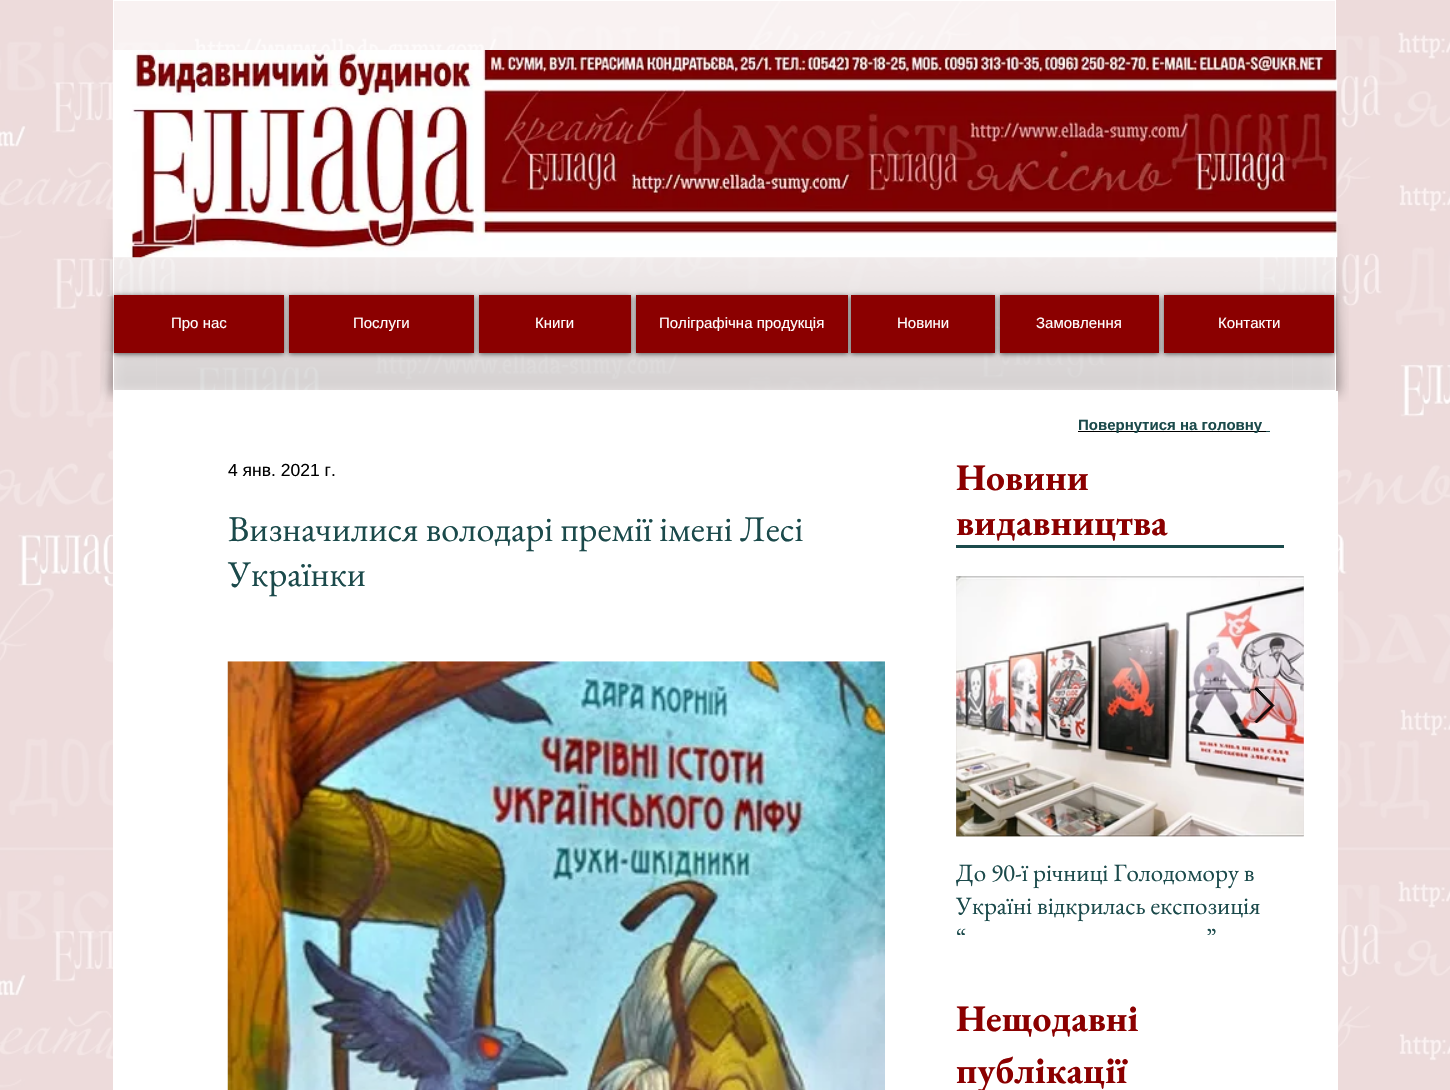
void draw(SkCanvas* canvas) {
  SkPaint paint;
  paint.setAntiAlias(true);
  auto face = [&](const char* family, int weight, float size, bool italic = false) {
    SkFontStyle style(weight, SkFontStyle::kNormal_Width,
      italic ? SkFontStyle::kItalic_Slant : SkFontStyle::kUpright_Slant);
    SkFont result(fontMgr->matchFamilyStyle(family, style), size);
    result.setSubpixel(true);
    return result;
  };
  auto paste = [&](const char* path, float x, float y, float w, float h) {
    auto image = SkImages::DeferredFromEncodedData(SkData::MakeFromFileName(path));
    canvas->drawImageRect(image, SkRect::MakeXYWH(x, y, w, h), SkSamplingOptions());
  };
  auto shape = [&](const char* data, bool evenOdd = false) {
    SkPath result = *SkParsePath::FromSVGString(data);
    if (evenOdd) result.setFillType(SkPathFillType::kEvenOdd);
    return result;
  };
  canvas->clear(0xffffffff);
  paste("img/1.png", 0, 0, 1450, 1090);
  paste("img/3.png", 100, 219, 57, 183);
  paste("img/4.png", 156, 257, 1137, 133);
  paste("img/5.png", 1292, 224, 57, 178);
  paint.setColor(0xa1ffffff);
  canvas->drawRect(SkRect::MakeXYWH(113.5f, 0.5f, 1222, 390), paint);
  paint.setStroke(true);
  paint.setStrokeWidth(1);
  paint.setColor(0xffffffff);
  canvas->drawRect(SkRect::MakeXYWH(113.5f, 0.5f, 1222, 390), paint);
  paste("img/2.png", 112, 50, 1226, 208);
  paint.setStroke(false);
  paint.setColor(0x99000000);
  paint.setMaskFilter(SkMaskFilter::MakeBlur(kNormal_SkBlurStyle, 2.5f));
  canvas->drawRect(SkRect::MakeXYWH(114, 296, 170, 58), paint);
  paint.setMaskFilter(nullptr);
  paint.setColor(0xff8b0000);
  canvas->drawRect(SkRect::MakeXYWH(114, 295, 170, 58), paint);
  paint.setColor(0x99000000);
  paint.setMaskFilter(SkMaskFilter::MakeBlur(kNormal_SkBlurStyle, 2.5f));
  canvas->drawRect(SkRect::MakeXYWH(289, 296, 185, 58), paint);
  paint.setMaskFilter(nullptr);
  paint.setColor(0xff8b0000);
  canvas->drawRect(SkRect::MakeXYWH(289, 295, 185, 58), paint);
  paint.setColor(0x99000000);
  paint.setMaskFilter(SkMaskFilter::MakeBlur(kNormal_SkBlurStyle, 2.5f));
  canvas->drawRect(SkRect::MakeXYWH(479, 296, 152, 58), paint);
  paint.setMaskFilter(nullptr);
  paint.setColor(0xff8b0000);
  canvas->drawRect(SkRect::MakeXYWH(479, 295, 152, 58), paint);
  paint.setColor(0x99000000);
  paint.setMaskFilter(SkMaskFilter::MakeBlur(kNormal_SkBlurStyle, 2.5f));
  canvas->drawRect(SkRect::MakeXYWH(636, 296, 212, 58), paint);
  paint.setMaskFilter(nullptr);
  paint.setColor(0xff8b0000);
  canvas->drawRect(SkRect::MakeXYWH(636, 295, 212, 58), paint);
  paint.setColor(0x99000000);
  paint.setMaskFilter(SkMaskFilter::MakeBlur(kNormal_SkBlurStyle, 2.5f));
  canvas->drawRect(SkRect::MakeXYWH(851, 296, 144, 58), paint);
  paint.setMaskFilter(nullptr);
  paint.setColor(0xff8b0000);
  canvas->drawRect(SkRect::MakeXYWH(851, 295, 144, 58), paint);
  paint.setColor(0x99000000);
  paint.setMaskFilter(SkMaskFilter::MakeBlur(kNormal_SkBlurStyle, 2.5f));
  canvas->drawRect(SkRect::MakeXYWH(1000, 296, 159, 58), paint);
  paint.setMaskFilter(nullptr);
  paint.setColor(0xff8b0000);
  canvas->drawRect(SkRect::MakeXYWH(1000, 295, 159, 58), paint);
  paint.setColor(0x99000000);
  paint.setMaskFilter(SkMaskFilter::MakeBlur(kNormal_SkBlurStyle, 2.5f));
  canvas->drawRect(SkRect::MakeXYWH(1164, 296, 170, 58), paint);
  paint.setMaskFilter(nullptr);
  {
    const struct { float x, y, w, h; SkColor color; } items[] = {
      {1164, 295, 170, 58, 0xff8b0000},
      {113, 391, 1225, 699, 0xffffffff},
      {1078, 431, 188, 1, 0xff000000},
      {1266, 431, 4, 1, 0xff1b4a4b},
    };
    for (auto [x, y, w, h, color] : items) {
      paint.setColor(color);
      canvas->drawRect(SkRect::MakeXYWH(x, y, w, h), paint);
    }
  }
  paste("img/6.png", 227, 661, 658, 429);
  canvas->drawRect(SkRect::MakeXYWH(956, 545, 328, 3), paint);
  paste("img/7.png", 956, 576, 348, 261);
  paste("img/8.png", 956, 576, 348, 261);
  paint.setColor(0xe6000000);
  canvas->drawPath(shape("M1255 689L1256.5 687.5L1274 705.5L1256.5 723L1255 721.5L1271 705.5Z"), paint);
  canvas->save();
  canvas->clipRect(SkRect::MakeXYWH(1253, 688, 22, 37));
  paint.setStroke(true);
  canvas->drawPath(shape("M1255 689L1256.5 687.5L1274 705.5L1256.5 723L1255 721.5L1271 705.5Z"), paint);
  canvas->restore();
  auto f0 = face("Liberation Sans", 400, 15);
  paint.setStroke(false);
  paint.setColor(0xffffffff);
  {
    const struct { const char* s; float x, y; } items[] = {
      {"Про нас", 171, 328},
      {"Послуги", 353, 328},
      {"Книги", 535, 328},
      {"Поліграфічна продукція", 659, 328},
      {"Новини", 897, 328},
      {"Замовлення", 1036, 328},
      {"Контакти", 1218, 328},
    };
    for (auto [s, x, y] : items) {
      canvas->drawString(s, x, y, f0, paint);
    }
  }
  auto f1 = face("Liberation Sans", 700, 15);
  paint.setColor(0xff1b4a4b);
  canvas->drawString("Повернутися на головну", 1078, 430, f1, paint);
  auto f2 = face("Liberation Sans", 400, 17.5f);
  paint.setColor(0xff000000);
  canvas->drawString("4 янв. 2021 г.", 228, 476, f2, paint);
  auto f3 = face("EB Garamond", 400, 36.25f);
  paint.setColor(0xff1b4a4b);
  canvas->drawString("Визначилися володарі премії імені Лесі", 228, 541, f3, paint);
  canvas->drawString("Українки", 228, 586, f3, paint);
  auto f4 = face("EB Garamond", 700, 37.5f);
  paint.setColor(0xff8b0000);
  canvas->drawString("Новини", 956, 490, f4, paint);
  canvas->drawString("видавництва", 956, 535, f4, paint);
  auto f5 = face("EB Garamond", 400, 25);
  paint.setColor(0xff1b4a4b);
  canvas->drawString("До 90-ї річниці Голодомору в", 956, 881, f5, paint);
  canvas->drawString("Україні відкрилась експозиція", 956, 914, f5, paint);
  canvas->save();
  canvas->clipRect(SkRect::MakeXYWH(956, 856, 348, 79));
  canvas->drawString("“", 956, 946, f5, paint);
  canvas->drawString("”", 1206, 946, f5, paint);
  canvas->restore();
  paint.setColor(0xff8b0000);
  canvas->drawString("Нещодавні", 956, 1031, f4, paint);
  canvas->drawString("публікації", 956, 1083, f4, paint);
}
